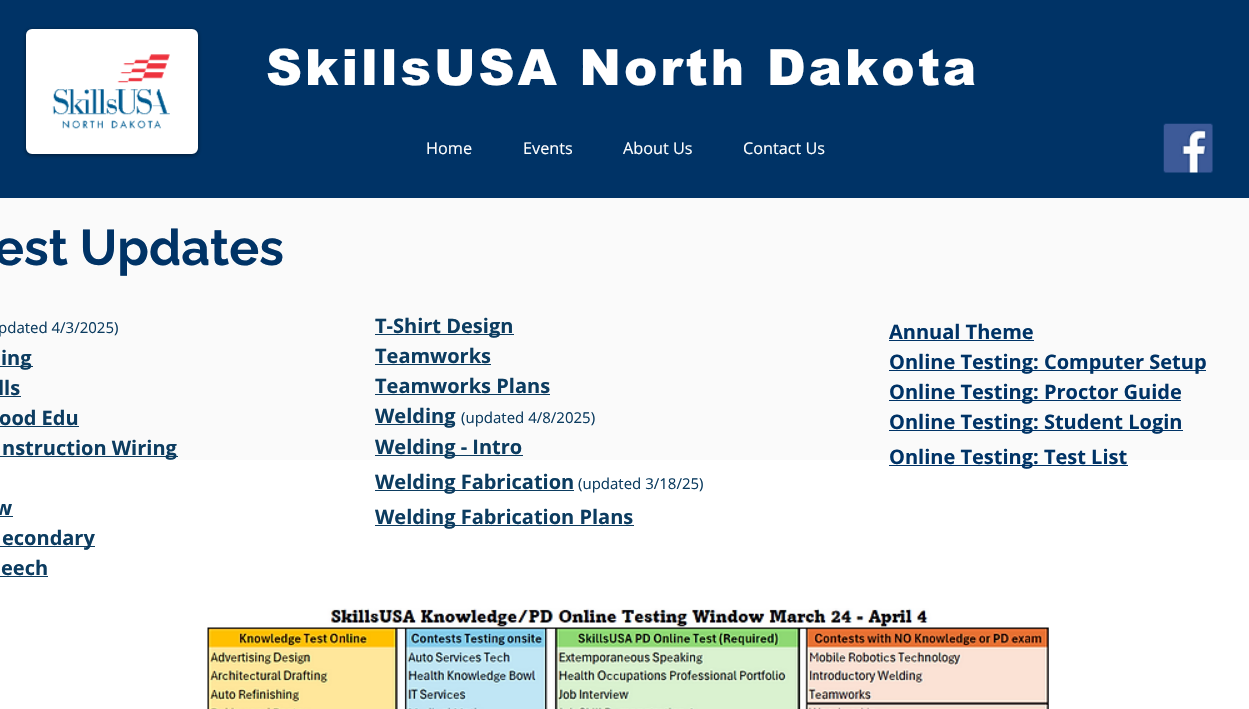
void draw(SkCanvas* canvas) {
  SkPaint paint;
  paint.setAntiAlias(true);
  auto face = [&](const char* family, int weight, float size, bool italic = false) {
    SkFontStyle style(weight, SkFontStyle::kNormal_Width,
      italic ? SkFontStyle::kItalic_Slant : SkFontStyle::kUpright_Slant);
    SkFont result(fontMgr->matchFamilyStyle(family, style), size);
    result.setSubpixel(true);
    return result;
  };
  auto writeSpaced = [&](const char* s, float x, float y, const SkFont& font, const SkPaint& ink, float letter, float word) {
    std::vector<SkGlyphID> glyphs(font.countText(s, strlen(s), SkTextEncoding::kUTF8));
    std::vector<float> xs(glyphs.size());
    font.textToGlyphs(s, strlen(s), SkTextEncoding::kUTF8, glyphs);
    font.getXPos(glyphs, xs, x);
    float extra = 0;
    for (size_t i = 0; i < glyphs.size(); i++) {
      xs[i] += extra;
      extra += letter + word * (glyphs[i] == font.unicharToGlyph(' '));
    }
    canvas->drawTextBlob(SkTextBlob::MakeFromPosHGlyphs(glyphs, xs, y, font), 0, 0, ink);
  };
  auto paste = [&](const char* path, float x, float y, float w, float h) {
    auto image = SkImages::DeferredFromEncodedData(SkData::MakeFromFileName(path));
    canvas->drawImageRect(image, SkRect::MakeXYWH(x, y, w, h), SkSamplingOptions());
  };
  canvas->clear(0xffffffff);
  paint.setColor(0xff003366);
  canvas->drawRect(SkRect::MakeXYWH(0, 0, 1249, 198), paint);
  paint.setColor(0x80000000);
  paint.setMaskFilter(SkMaskFilter::MakeBlur(kNormal_SkBlurStyle, 2));
  canvas->drawRoundRect(SkRect::MakeXYWH(26, 30, 172, 125), 6, 6, paint);
  paint.setMaskFilter(nullptr);
  paint.setColor(0xffffffff);
  canvas->drawRoundRect(SkRect::MakeXYWH(27.5f, 30.5f, 169, 122), 4.5f, 4.5f, paint);
  paint.setStroke(true);
  paint.setStrokeWidth(3);
  canvas->drawRoundRect(SkRect::MakeXYWH(27.5f, 30.5f, 169, 122), 4.5f, 4.5f, paint);
  paste("img/1.png", 52, 54, 118, 75);
  paste("img/2.png", 1163, 123, 50, 50);
  paint.setStroke(false);
  {
    const struct { float x, y, w, h; SkColor color; } items[] = {
      {0, 198, 1249, 262, 0xfffafafa},
      {889, 340, 145, 1, 0xff003366},
      {889, 370, 317, 1, 0xff003366},
      {889, 400, 292, 1, 0xff003366},
      {889, 430, 294, 1, 0xff003366},
      {889, 465, 239, 1, 0xff003366},
      {0, 366, 33, 1, 0xff0c3c60},
      {0, 396, 21, 1, 0xff0c3c60},
      {0, 426, 79, 1, 0xff0c3c60},
      {0, 456, 178, 1, 0xff0c3c60},
      {0, 516, 13, 1, 0xff0c3c60},
      {0, 546, 95, 1, 0xff0c3c60},
      {0, 576, 48, 1, 0xff0c3c60},
      {375, 334, 139, 1, 0xff0c3c60},
      {375, 364, 116, 1, 0xff0c3c60},
      {375, 394, 175, 1, 0xff0c3c60},
      {375, 424, 80, 1, 0xff0c3c60},
      {375, 455, 148, 1, 0xff0c3c60},
      {375, 490, 199, 1, 0xff0c3c60},
      {375, 525, 259, 1, 0xff0c3c60},
    };
    for (auto [x, y, w, h, color] : items) {
      paint.setColor(color);
      canvas->drawRect(SkRect::MakeXYWH(x, y, w, h), paint);
    }
  }
  paste("img/3.png", 207, 608, 842, 101);
  auto f0 = face("arial", 900, 50);
  paint.setColor(0xffffffff);
  writeSpaced("SkillsUSA North Dakota", 266, 85, f0, paint, 3, 0);
  auto f1 = face("Open Sans", 400, 16.25f);
  {
    const struct { const char* s; float x, y; } items[] = {
      {"Home", 426, 154},
      {"Events", 523, 154},
      {"About Us", 623, 154},
      {"Contact Us", 743, 154},
    };
    for (auto [s, x, y] : items) {
      canvas->drawString(s, x, y, f1, paint);
    }
  }
  auto f2 = face("Raleway", 700, 50);
  paint.setColor(0xff003366);
  canvas->drawString("est Updates", -6, 265, f2, paint);
  auto f3 = face("Open Sans", 700, 20);
  {
    const struct { const char* s; float x, y; } items[] = {
      {"Annual Theme", 889, 339},
      {"Online Testing: Computer Setup", 889, 369},
      {"Online Testing: Proctor Guide", 889, 399},
      {"Online Testing: Student Login", 889, 429},
      {"Online Testing: Test List", 889, 464},
    };
    for (auto [s, x, y] : items) {
      canvas->drawString(s, x, y, f3, paint);
    }
  }
  auto f4 = face("Open Sans", 400, 15);
  paint.setColor(0xff0c3c60);
  canvas->drawString("pdated 4/3/2025)", -2, 333, f4, paint);
  {
    const struct { const char* s; float x, y; } items[] = {
      {"ing", 1, 365},
      {"lls", -2, 395},
      {"ood Edu", -1, 425},
      {"nstruction Wiring", 2, 455},
      {"w", -5, 515},
      {"econdary", 2, 545},
      {"eech", 1, 575},
      {"T-Shirt Design", 375, 333},
      {"Teamworks", 375, 363},
      {"Teamworks Plans", 375, 393},
      {"Welding", 375, 423},
    };
    for (auto [s, x, y] : items) {
      canvas->drawString(s, x, y, f3, paint);
    }
  }
  canvas->drawString("(updated 4/8/2025)", 461, 423, f4, paint);
  canvas->drawString("Welding - Intro", 375, 454, f3, paint);
  canvas->drawString("Welding Fabrication", 375, 489, f3, paint);
  canvas->drawString("(updated 3/18/25)", 578, 489, f4, paint);
  canvas->drawString("Welding Fabrication Plans", 375, 524, f3, paint);
}
